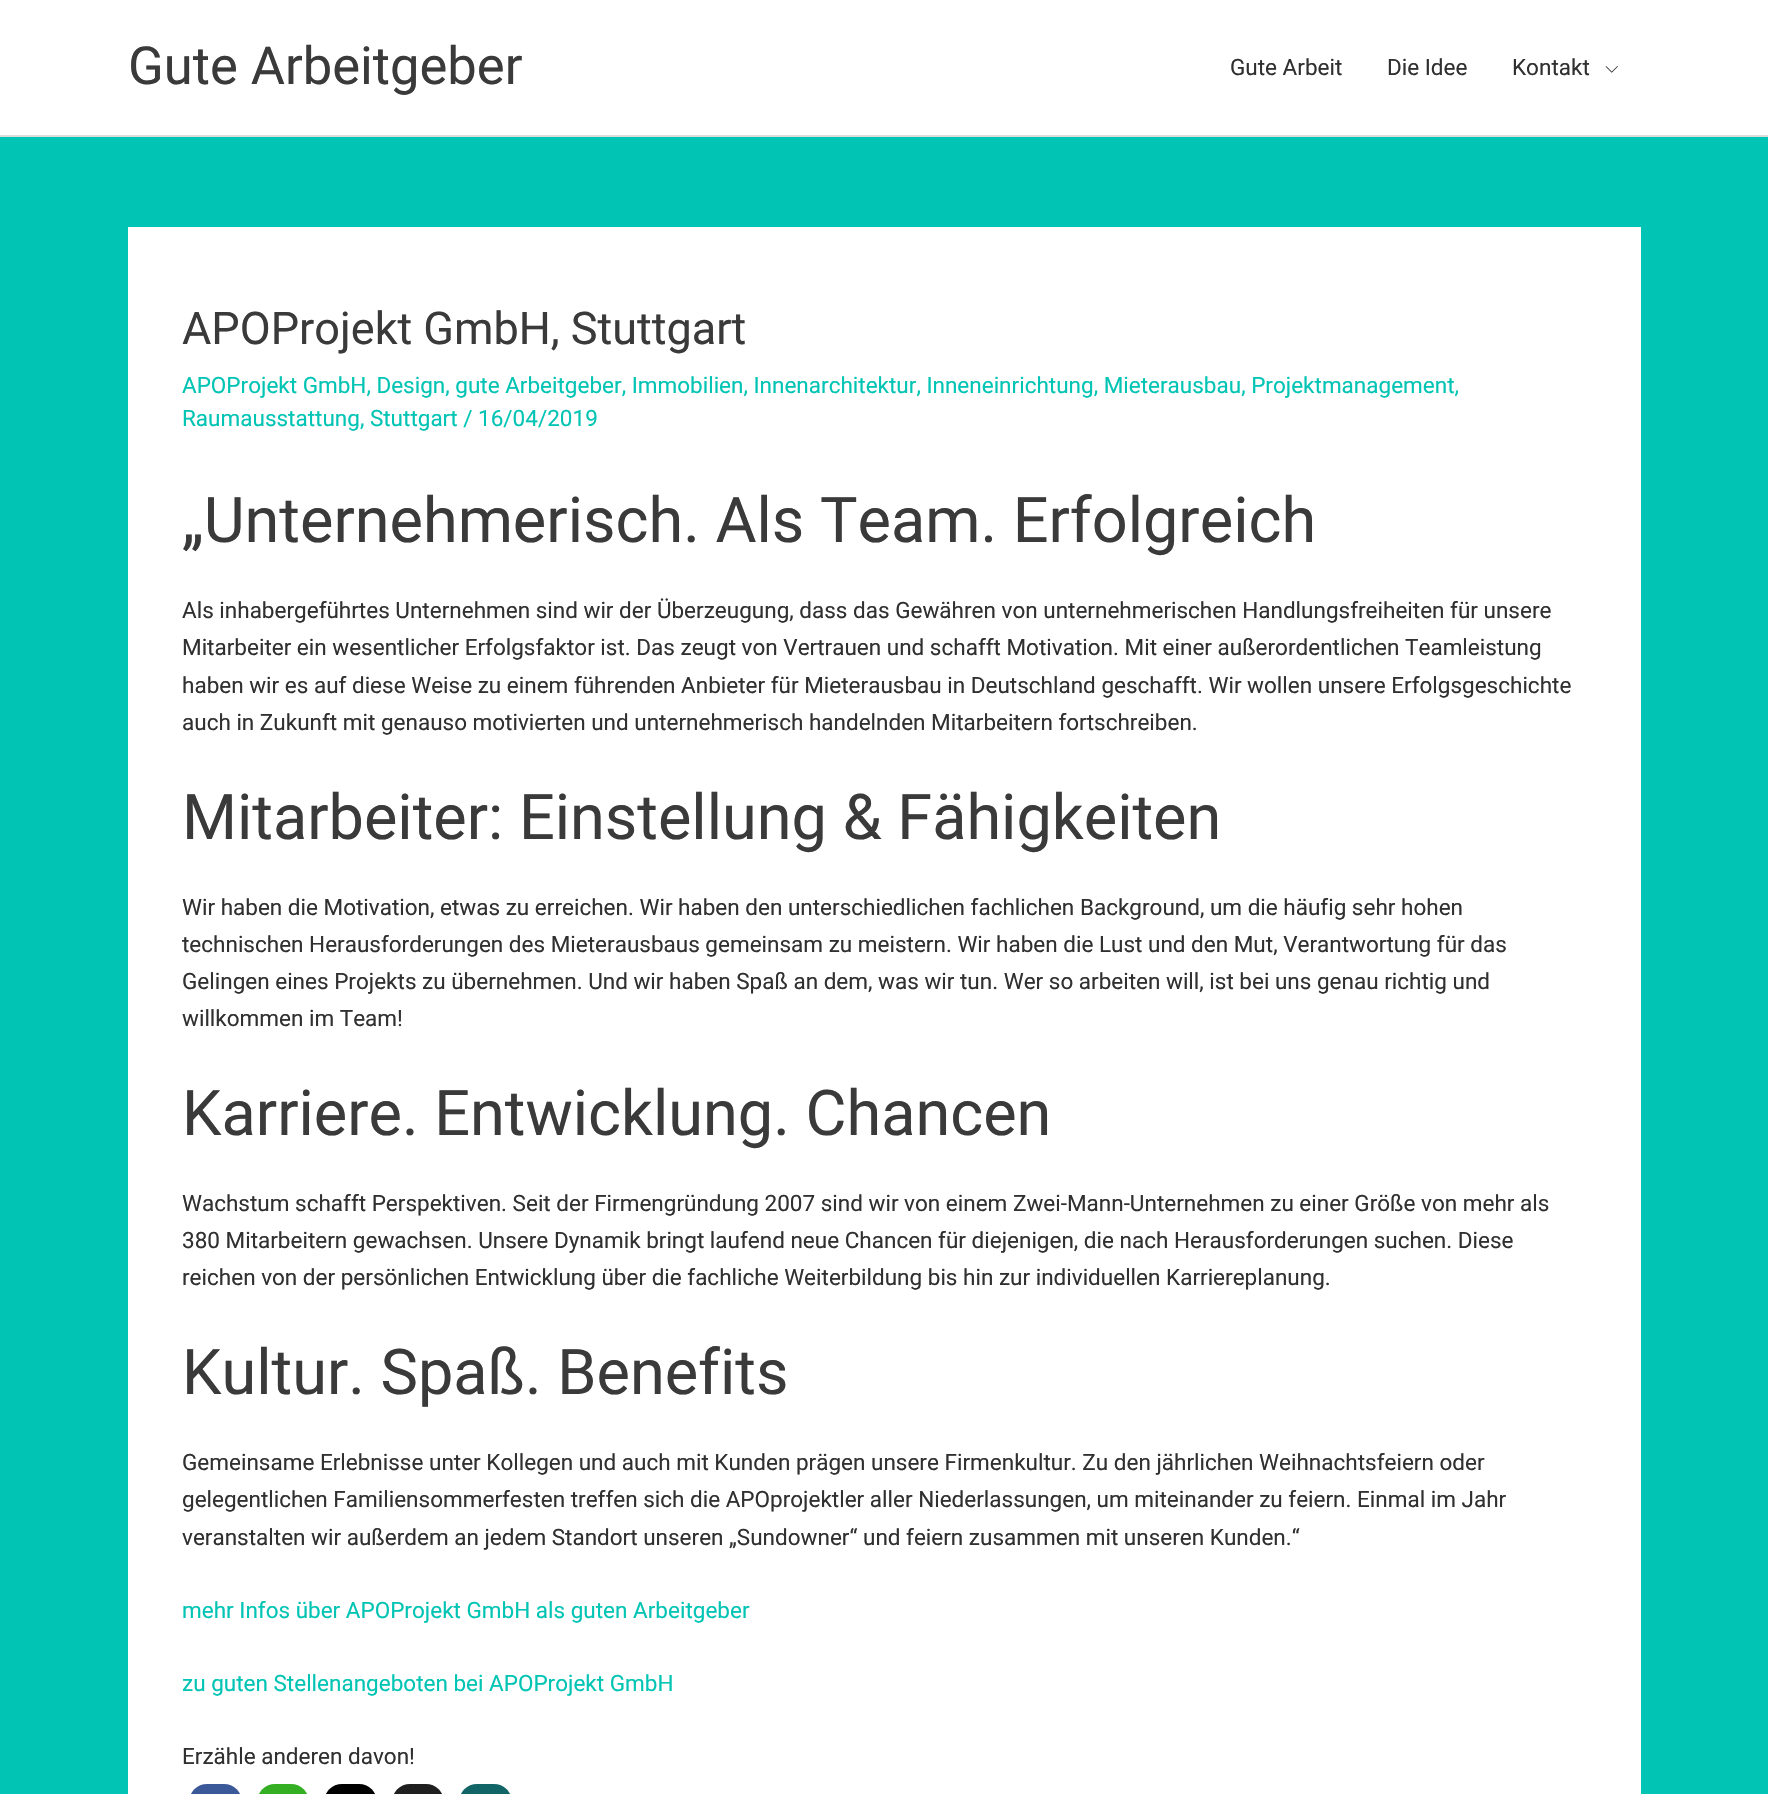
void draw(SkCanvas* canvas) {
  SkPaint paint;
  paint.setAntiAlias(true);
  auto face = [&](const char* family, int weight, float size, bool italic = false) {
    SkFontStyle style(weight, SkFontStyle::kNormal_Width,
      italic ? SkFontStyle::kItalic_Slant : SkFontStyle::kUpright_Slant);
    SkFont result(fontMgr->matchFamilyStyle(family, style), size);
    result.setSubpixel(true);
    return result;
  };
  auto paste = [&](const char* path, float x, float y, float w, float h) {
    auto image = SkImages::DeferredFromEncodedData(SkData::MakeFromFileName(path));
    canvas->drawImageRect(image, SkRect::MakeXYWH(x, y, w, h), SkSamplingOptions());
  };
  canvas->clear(0xff01c4b4);
  paint.setColor(0xffffffff);
  canvas->drawRect(SkRect::MakeXYWH(0, 0, 1768, 135), paint);
  paint.setColor(0xffdddddd);
  canvas->drawRect(SkRect::MakeXYWH(0, 135, 1768, 2), paint);
  paste("img/1.png", 1605, 66, 13, 7);
  paint.setColor(0xffffffff);
  canvas->drawRect(SkRect::MakeXYWH(128, 227, 1513, 1567), paint);
  paint.setColor(0xff3b5998);
  canvas->drawRoundRect(SkRect::MakeXYWH(189, 1784, 53, 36), 26, 26, paint);
  paint.setColor(0xff34af23);
  canvas->drawRoundRect(SkRect::MakeXYWH(257, 1784, 52, 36), 26, 26, paint);
  paint.setColor(0xff000000);
  canvas->drawRoundRect(SkRect::MakeXYWH(324, 1784, 53, 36), 26, 26, paint);
  paint.setColor(0xff1f1f1f);
  canvas->drawRoundRect(SkRect::MakeXYWH(392, 1784, 52, 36), 26, 26, paint);
  paint.setColor(0xff126567);
  canvas->drawRoundRect(SkRect::MakeXYWH(459, 1784, 53, 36), 26, 26, paint);
  auto f0 = face("Roboto", 400, 52.5f);
  paint.setColor(0xff3a3a3a);
  canvas->drawString("Gute Arbeitgeber", 128, 84, f0, paint);
  auto f1 = face("Roboto", 400, 22.5f);
  paint.setColor(0xff303030);
  {
    const struct { const char* s; float x, y; } items[] = {
      {"Gute Arbeit", 1230, 75},
      {"Die Idee", 1387, 75},
      {"Kontakt", 1512, 75},
    };
    for (auto [s, x, y] : items) {
      canvas->drawString(s, x, y, f1, paint);
    }
  }
  auto f2 = face("Roboto", 400, 45);
  paint.setColor(0xff3a3a3a);
  canvas->drawString("APOProjekt GmbH, Stuttgart", 182, 344, f2, paint);
  paint.setColor(0xff01c4b4);
  canvas->drawString("APOProjekt GmbH, Design, gute Arbeitgeber, Immobilien, Innenarchitektur, Inneneinrichtung, Mieterausbau, Projektmanagement,", 182, 393, f1, paint);
  canvas->drawString("Raumausstattung, Stuttgart / 16/04/2019", 182, 426, f1, paint);
  auto f3 = face("Roboto", 400, 63);
  paint.setColor(0xff3a3a3a);
  canvas->drawString("„Unternehmerisch. Als Team. Erfolgreich", 182, 542, f3, paint);
  paint.setColor(0xff303030);
  {
    const struct { const char* s; float x, y; } items[] = {
      {"Als inhabergeführtes Unternehmen sind wir der Überzeugung, dass das Gewähren von unternehmerischen Handlungsfreiheiten für unsere", 182, 618},
      {"Mitarbeiter ein wesentlicher Erfolgsfaktor ist. Das zeugt von Vertrauen und schafft Motivation. Mit einer außerordentlichen Teamleistung", 182, 655},
      {"haben wir es auf diese Weise zu einem führenden Anbieter für Mieterausbau in Deutschland geschafft. Wir wollen unsere Erfolgsgeschichte", 182, 693},
      {"auch in Zukunft mit genauso motivierten und unternehmerisch handelnden Mitarbeitern fortschreiben.", 182, 730},
    };
    for (auto [s, x, y] : items) {
      canvas->drawString(s, x, y, f1, paint);
    }
  }
  paint.setColor(0xff3a3a3a);
  canvas->drawString("Mitarbeiter: Einstellung & Fähigkeiten", 182, 839, f3, paint);
  paint.setColor(0xff303030);
  {
    const struct { const char* s; float x, y; } items[] = {
      {"Wir haben die Motivation, etwas zu erreichen. Wir haben den unterschiedlichen fachlichen Background, um die häufig sehr hohen", 182, 915},
      {"technischen Herausforderungen des Mieterausbaus gemeinsam zu meistern. Wir haben die Lust und den Mut, Verantwortung für das", 182, 952},
      {"Gelingen eines Projekts zu übernehmen. Und wir haben Spaß an dem, was wir tun. Wer so arbeiten will, ist bei uns genau richtig und", 182, 989},
      {"willkommen im Team!", 182, 1026},
    };
    for (auto [s, x, y] : items) {
      canvas->drawString(s, x, y, f1, paint);
    }
  }
  paint.setColor(0xff3a3a3a);
  canvas->drawString("Karriere. Entwicklung. Chancen", 182, 1135, f3, paint);
  paint.setColor(0xff303030);
  {
    const struct { const char* s; float x, y; } items[] = {
      {"Wachstum schafft Perspektiven. Seit der Firmengründung 2007 sind wir von einem Zwei-Mann-Unternehmen zu einer Größe von mehr als", 182, 1211},
      {"380 Mitarbeitern gewachsen. Unsere Dynamik bringt laufend neue Chancen für diejenigen, die nach Herausforderungen suchen. Diese", 182, 1248},
      {"reichen von der persönlichen Entwicklung über die fachliche Weiterbildung bis hin zur individuellen Karriereplanung.", 182, 1285},
    };
    for (auto [s, x, y] : items) {
      canvas->drawString(s, x, y, f1, paint);
    }
  }
  paint.setColor(0xff3a3a3a);
  canvas->drawString("Kultur. Spaß. Benefits", 182, 1394, f3, paint);
  paint.setColor(0xff303030);
  {
    const struct { const char* s; float x, y; } items[] = {
      {"Gemeinsame Erlebnisse unter Kollegen und auch mit Kunden prägen unsere Firmenkultur. Zu den jährlichen Weihnachtsfeiern oder", 182, 1470},
      {"gelegentlichen Familiensommerfesten treffen sich die APOprojektler aller Niederlassungen, um miteinander zu feiern. Einmal im Jahr", 182, 1507},
      {"veranstalten wir außerdem an jedem Standort unseren „Sundowner“ und feiern zusammen mit unseren Kunden.“", 182, 1545},
    };
    for (auto [s, x, y] : items) {
      canvas->drawString(s, x, y, f1, paint);
    }
  }
  paint.setColor(0xff01c4b4);
  canvas->drawString("mehr Infos über APOProjekt GmbH als guten Arbeitgeber", 182, 1618, f1, paint);
  canvas->drawString("zu guten Stellenangeboten bei APOProjekt GmbH", 182, 1691, f1, paint);
  paint.setColor(0xff303030);
  canvas->drawString("Erzähle anderen davon!", 182, 1764, f1, paint);
}
